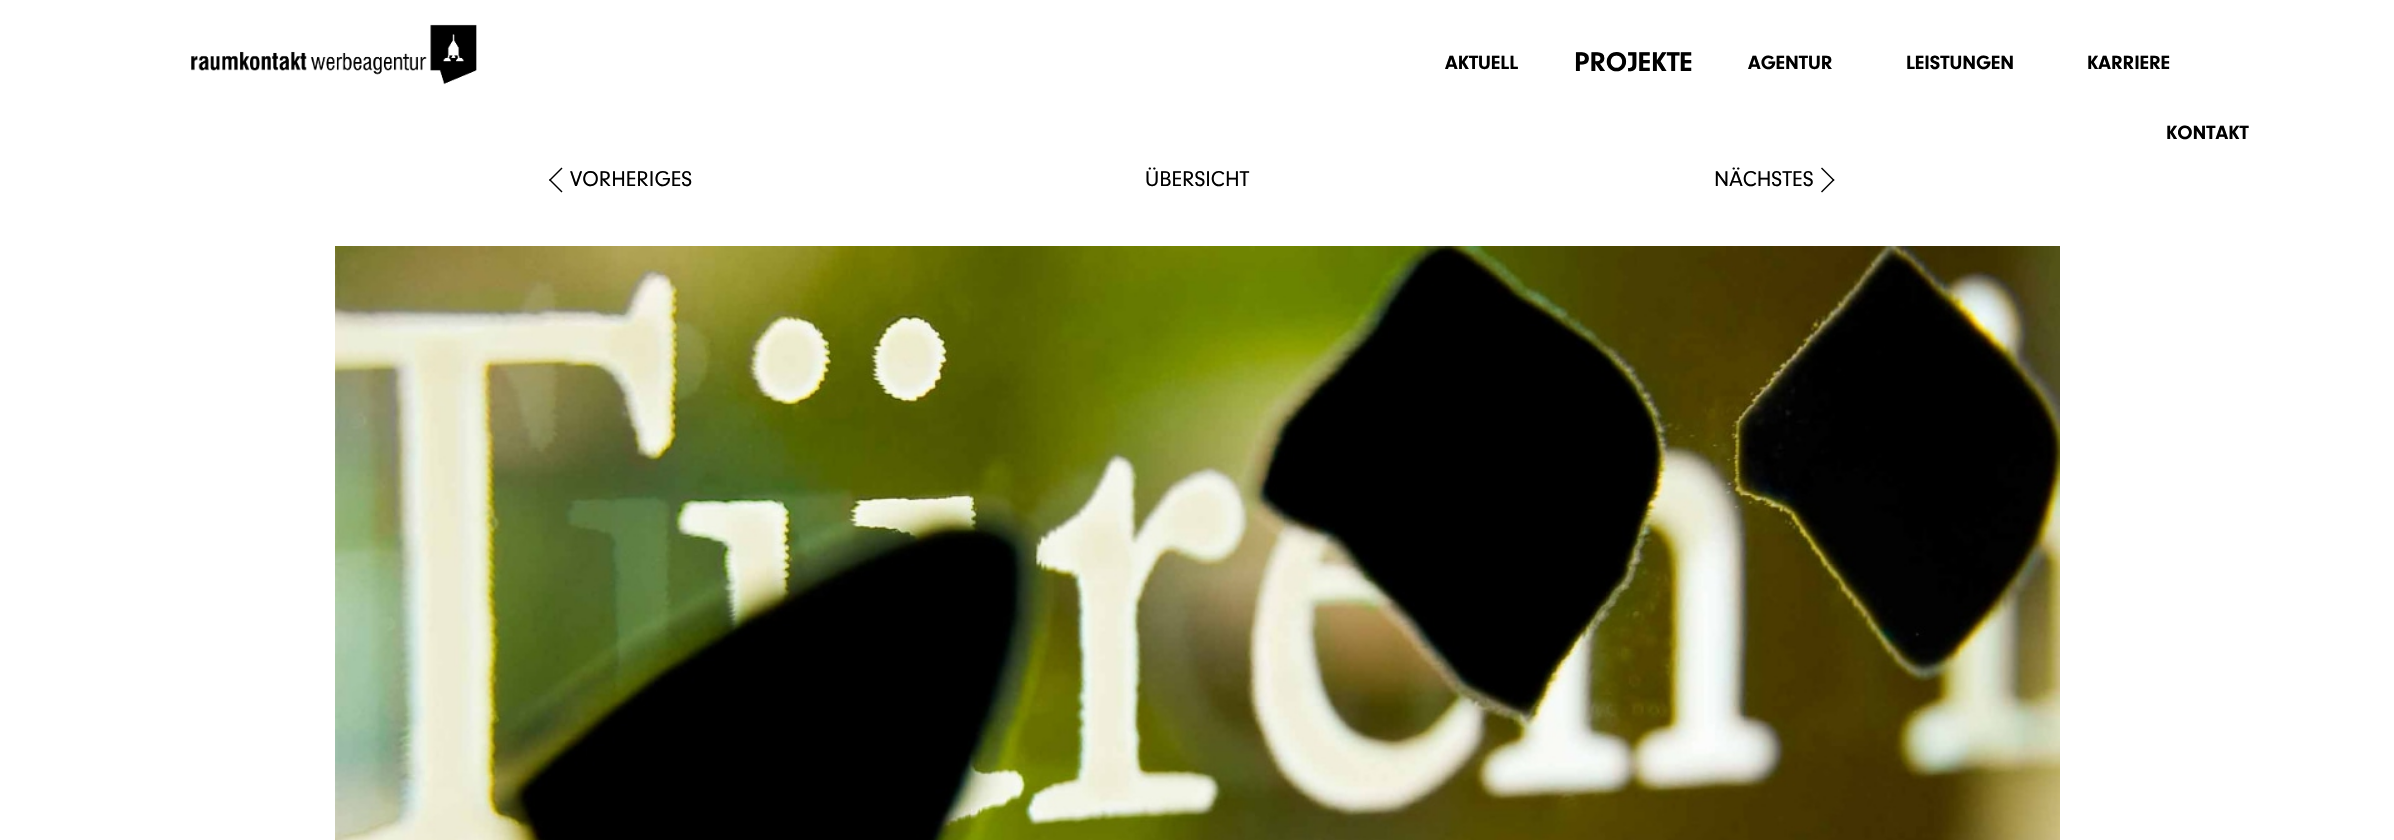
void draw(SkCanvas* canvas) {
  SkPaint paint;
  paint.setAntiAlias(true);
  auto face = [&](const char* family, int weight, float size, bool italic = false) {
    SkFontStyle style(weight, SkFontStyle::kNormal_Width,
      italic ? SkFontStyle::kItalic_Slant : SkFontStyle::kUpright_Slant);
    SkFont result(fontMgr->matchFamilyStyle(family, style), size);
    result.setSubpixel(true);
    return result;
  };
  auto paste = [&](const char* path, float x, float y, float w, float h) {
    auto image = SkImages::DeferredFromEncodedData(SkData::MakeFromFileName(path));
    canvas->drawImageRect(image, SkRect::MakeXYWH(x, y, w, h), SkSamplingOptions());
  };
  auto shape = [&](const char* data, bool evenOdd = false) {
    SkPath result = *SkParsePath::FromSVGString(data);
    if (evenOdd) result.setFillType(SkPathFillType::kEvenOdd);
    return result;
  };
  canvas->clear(0xffffffff);
  paste("img/1.png", 191, 24, 286, 61);
  paint.setColor(0xff000000);
  canvas->drawPath(shape("M561.5 192.5L549 180L550 179L562.5 191.5Z"), paint);
  canvas->drawPath(shape("M550 181L549 180L561.5 167.5L562.5 168.5Z"), paint);
  canvas->drawPath(shape("M1822 167.5L1834.5 180L1833.5 181L1821 168.5Z"), paint);
  canvas->drawPath(shape("M1833.5 179L1834.5 180L1822 192.5L1821 191.5Z"), paint);
  paste("img/2.png", 335, 246, 1725, 594);
  auto f0 = face("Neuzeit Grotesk", 700, 20);
  canvas->drawString("AKTUELL", 1445, 69, f0, paint);
  auto f1 = face("Neuzeit Grotesk", 700, 28);
  canvas->drawString("PROJEKTE", 1574, 71, f1, paint);
  {
    const struct { const char* s; float x, y; } items[] = {
      {"AGENTUR", 1748, 69},
      {"LEISTUNGEN", 1906, 69},
      {"KARRIERE", 2087, 69},
      {"KONTAKT", 2166, 139},
    };
    for (auto [s, x, y] : items) {
      canvas->drawString(s, x, y, f0, paint);
    }
  }
  auto f2 = face("Neuzeit Grotesk", 400, 22.25f);
  {
    const struct { const char* s; float x, y; } items[] = {
      {"VORHERIGES", 570, 186},
      {"ÜBERSICHT", 1145, 186},
      {"NÄCHSTES", 1714, 186},
    };
    for (auto [s, x, y] : items) {
      canvas->drawString(s, x, y, f2, paint);
    }
  }
}
